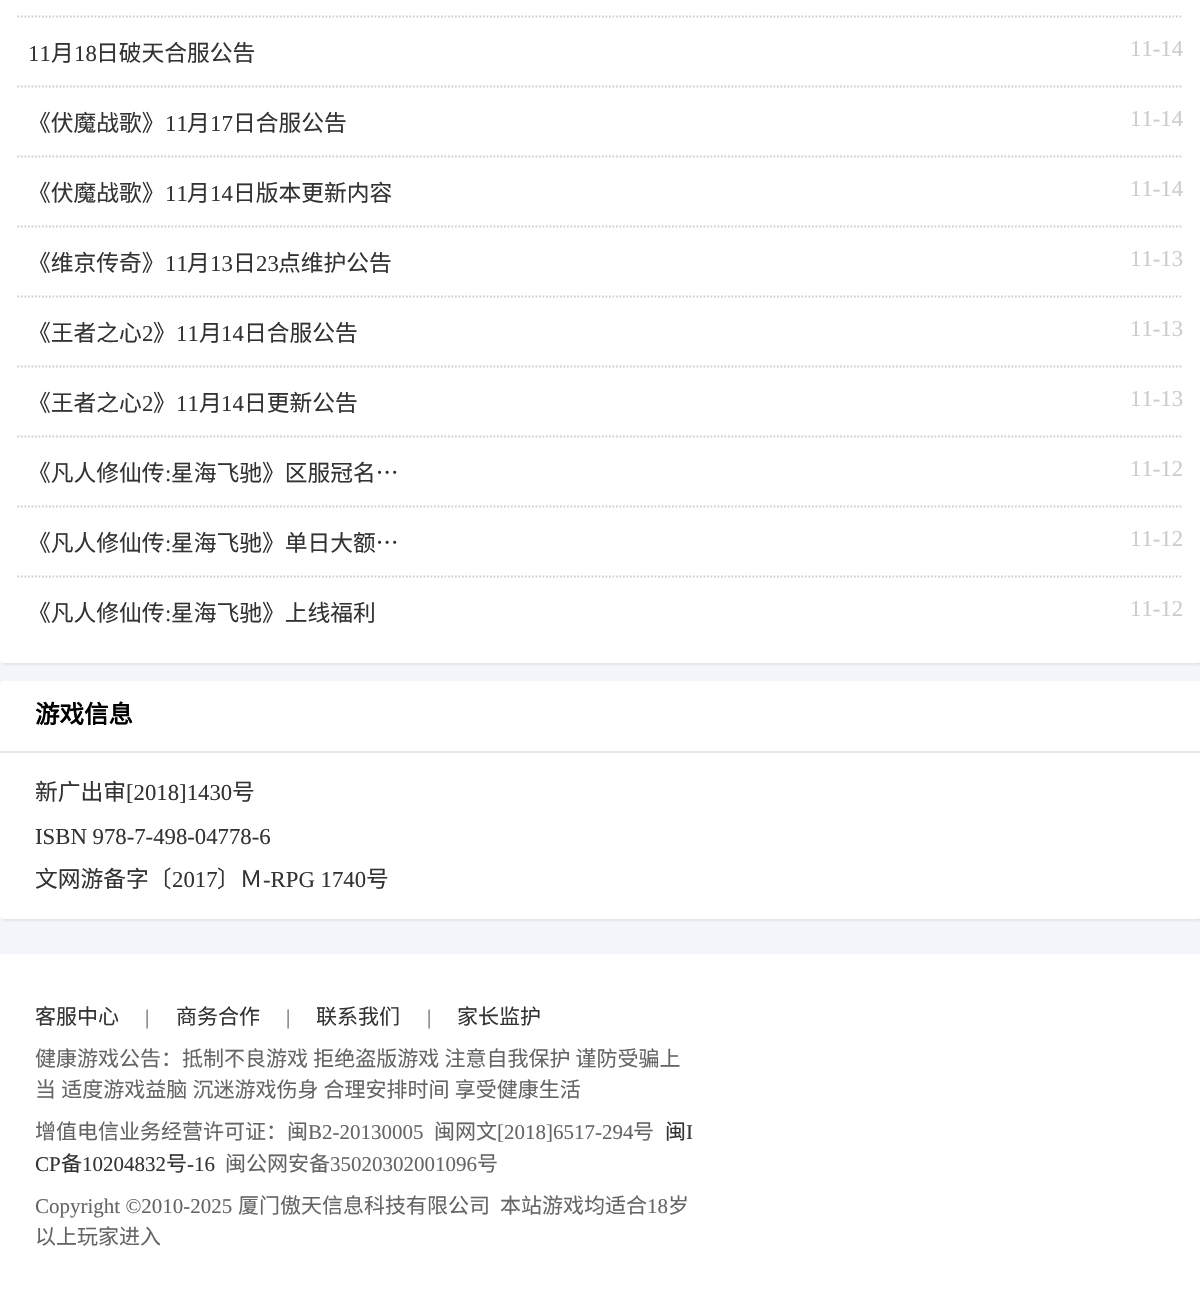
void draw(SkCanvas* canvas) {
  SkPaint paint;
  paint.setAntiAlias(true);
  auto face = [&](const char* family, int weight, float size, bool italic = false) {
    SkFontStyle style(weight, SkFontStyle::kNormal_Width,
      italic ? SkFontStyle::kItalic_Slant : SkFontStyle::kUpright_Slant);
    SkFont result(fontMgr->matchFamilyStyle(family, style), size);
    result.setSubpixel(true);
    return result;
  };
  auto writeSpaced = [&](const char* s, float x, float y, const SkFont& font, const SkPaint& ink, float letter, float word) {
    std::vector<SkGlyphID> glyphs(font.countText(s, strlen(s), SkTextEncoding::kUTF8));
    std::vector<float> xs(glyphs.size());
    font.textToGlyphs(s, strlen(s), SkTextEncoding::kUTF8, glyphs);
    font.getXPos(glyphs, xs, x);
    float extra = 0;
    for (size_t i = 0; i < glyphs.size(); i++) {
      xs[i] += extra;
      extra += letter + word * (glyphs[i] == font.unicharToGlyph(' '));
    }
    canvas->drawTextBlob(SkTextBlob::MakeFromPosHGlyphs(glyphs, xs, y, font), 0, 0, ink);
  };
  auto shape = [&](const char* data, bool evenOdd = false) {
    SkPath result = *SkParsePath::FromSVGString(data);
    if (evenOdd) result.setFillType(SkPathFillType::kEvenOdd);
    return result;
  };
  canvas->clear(0xfff2f5f9);
  paint.setColor(0xffe6e6eb);
  paint.setMaskFilter(SkMaskFilter::MakeBlur(kNormal_SkBlurStyle, 1));
  canvas->drawRoundRect(SkRect::MakeXYWH(2, -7, 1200, 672), 4, 4, paint);
  paint.setMaskFilter(nullptr);
  paint.setColor(0xffffffff);
  canvas->drawRoundRect(SkRect::MakeXYWH(0, -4, 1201, 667), 4, 4, paint);
  paint.setStroke(true);
  paint.setStrokeWidth(1.8f);
  paint.setColor(0xffd0d0d0);
  paint.setPathEffect(SkDashPathEffect::Make({{1.75f, 1.75f}}, 0));
  canvas->drawPath(shape("M17.5 16.5H1183"), paint);
  paint.setPathEffect(nullptr);
  paint.setPathEffect(SkDashPathEffect::Make({{1.75f, 1.75f}}, 0));
  canvas->drawPath(shape("M17.5 86.5H1183"), paint);
  paint.setPathEffect(nullptr);
  paint.setPathEffect(SkDashPathEffect::Make({{1.75f, 1.75f}}, 0));
  canvas->drawPath(shape("M17.5 156.5H1183"), paint);
  paint.setPathEffect(nullptr);
  paint.setPathEffect(SkDashPathEffect::Make({{1.75f, 1.75f}}, 0));
  canvas->drawPath(shape("M17.5 226.5H1183"), paint);
  paint.setPathEffect(nullptr);
  paint.setPathEffect(SkDashPathEffect::Make({{1.75f, 1.75f}}, 0));
  canvas->drawPath(shape("M17.5 296.5H1183"), paint);
  paint.setPathEffect(nullptr);
  paint.setPathEffect(SkDashPathEffect::Make({{1.75f, 1.75f}}, 0));
  canvas->drawPath(shape("M17.5 366.5H1183"), paint);
  paint.setPathEffect(nullptr);
  paint.setPathEffect(SkDashPathEffect::Make({{1.75f, 1.75f}}, 0));
  canvas->drawPath(shape("M17.5 436.5H1183"), paint);
  paint.setPathEffect(nullptr);
  paint.setPathEffect(SkDashPathEffect::Make({{1.75f, 1.75f}}, 0));
  canvas->drawPath(shape("M17.5 506.5H1183"), paint);
  paint.setPathEffect(nullptr);
  paint.setPathEffect(SkDashPathEffect::Make({{1.75f, 1.75f}}, 0));
  canvas->drawPath(shape("M17.5 576.5H1183"), paint);
  paint.setPathEffect(nullptr);
  paint.setStroke(false);
  paint.setColor(0xffe6e6eb);
  paint.setMaskFilter(SkMaskFilter::MakeBlur(kNormal_SkBlurStyle, 1));
  canvas->drawRoundRect(SkRect::MakeXYWH(2, 683, 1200, 238), 4, 4, paint);
  paint.setMaskFilter(nullptr);
  paint.setColor(0xffffffff);
  canvas->drawRoundRect(SkRect::MakeXYWH(0, 681, 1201, 238), 4, 4, paint);
  paint.setColor(0xffe6e6eb);
  canvas->drawRect(SkRect::MakeXYWH(0, 751, 1200, 2), paint);
  paint.setColor(0xffffffff);
  canvas->drawRect(SkRect::MakeXYWH(0, 954, 1200, 342), paint);
  auto f0 = face("Liberation Serif", 400, 22.75f);
  paint.setColor(0xff333333);
  canvas->drawString("11", 28, 61, f0, paint);
  auto f1 = face("Noto Sans CJK SC", 400, 22.75f);
  canvas->drawString("月", 51, 61, f1, paint);
  canvas->drawString("18", 74, 61, f0, paint);
  canvas->drawString("日破天合服公告", 96, 61, f1, paint);
  paint.setColor(0xffcccccc);
  canvas->drawString("11-14", 1130, 56, f0, paint);
  paint.setColor(0xff333333);
  canvas->drawString("《伏魔战歌》", 28, 131, f1, paint);
  canvas->drawString("11", 165, 131, f0, paint);
  canvas->drawString("月", 187, 131, f1, paint);
  canvas->drawString("17", 210, 131, f0, paint);
  canvas->drawString("日合服公告", 233, 131, f1, paint);
  paint.setColor(0xffcccccc);
  canvas->drawString("11-14", 1130, 126, f0, paint);
  paint.setColor(0xff333333);
  canvas->drawString("《伏魔战歌》", 28, 201, f1, paint);
  canvas->drawString("11", 165, 201, f0, paint);
  canvas->drawString("月", 187, 201, f1, paint);
  canvas->drawString("14", 210, 201, f0, paint);
  canvas->drawString("日版本更新内容", 233, 201, f1, paint);
  paint.setColor(0xffcccccc);
  canvas->drawString("11-14", 1130, 196, f0, paint);
  paint.setColor(0xff333333);
  canvas->drawString("《维京传奇》", 28, 271, f1, paint);
  canvas->drawString("11", 165, 271, f0, paint);
  canvas->drawString("月", 187, 271, f1, paint);
  canvas->drawString("13", 210, 271, f0, paint);
  canvas->drawString("日", 233, 271, f1, paint);
  canvas->drawString("23", 256, 271, f0, paint);
  canvas->drawString("点维护公告", 278, 271, f1, paint);
  paint.setColor(0xffcccccc);
  canvas->drawString("11-13", 1130, 266, f0, paint);
  paint.setColor(0xff333333);
  canvas->drawString("《王者之心", 28, 341, f1, paint);
  canvas->drawString("2", 142, 341, f0, paint);
  canvas->drawString("》", 153, 341, f1, paint);
  canvas->drawString("11", 176, 341, f0, paint);
  canvas->drawString("月", 199, 341, f1, paint);
  canvas->drawString("14", 221, 341, f0, paint);
  canvas->drawString("日合服公告", 244, 341, f1, paint);
  paint.setColor(0xffcccccc);
  canvas->drawString("11-13", 1130, 336, f0, paint);
  paint.setColor(0xff333333);
  canvas->drawString("《王者之心", 28, 411, f1, paint);
  canvas->drawString("2", 142, 411, f0, paint);
  canvas->drawString("》", 153, 411, f1, paint);
  canvas->drawString("11", 176, 411, f0, paint);
  canvas->drawString("月", 199, 411, f1, paint);
  canvas->drawString("14", 221, 411, f0, paint);
  canvas->drawString("日更新公告", 244, 411, f1, paint);
  paint.setColor(0xffcccccc);
  canvas->drawString("11-13", 1130, 406, f0, paint);
  paint.setColor(0xff333333);
  canvas->drawString("《凡人修仙传", 28, 481, f1, paint);
  canvas->drawString(":", 165, 481, f0, paint);
  canvas->drawString("星海飞驰》区服冠名…", 171, 481, f1, paint);
  paint.setColor(0xffcccccc);
  canvas->drawString("11-12", 1130, 476, f0, paint);
  paint.setColor(0xff333333);
  canvas->drawString("《凡人修仙传", 28, 551, f1, paint);
  canvas->drawString(":", 165, 551, f0, paint);
  canvas->drawString("星海飞驰》单日大额…", 171, 551, f1, paint);
  paint.setColor(0xffcccccc);
  canvas->drawString("11-12", 1130, 546, f0, paint);
  paint.setColor(0xff333333);
  canvas->drawString("《凡人修仙传", 28, 621, f1, paint);
  canvas->drawString(":", 165, 621, f0, paint);
  canvas->drawString("星海飞驰》上线福利", 171, 621, f1, paint);
  paint.setColor(0xffcccccc);
  canvas->drawString("11-12", 1130, 616, f0, paint);
  auto f2 = face("Noto Sans CJK SC", 700, 24.5f);
  paint.setColor(0xff000000);
  canvas->drawString("游戏信息", 35, 723, f2, paint);
  paint.setColor(0xff333333);
  canvas->drawString("新广出审", 35, 800, f1, paint);
  canvas->drawString("[2018]1430", 126, 800, f0, paint);
  canvas->drawString("号", 232, 800, f1, paint);
  canvas->drawString("ISBN 978-7-498-04778-6", 35, 844, f0, paint);
  canvas->drawString("文网游备字〔", 35, 887, f1, paint);
  canvas->drawString("2017", 172, 887, f0, paint);
  canvas->drawString("〕Ｍ", 217, 887, f1, paint);
  canvas->drawString("-RPG 1740", 263, 887, f0, paint);
  canvas->drawString("号", 366, 887, f1, paint);
  auto f3 = face("Noto Sans CJK SC", 400, 21);
  canvas->drawString("客服中心", 35, 1024, f3, paint);
  auto f4 = face("Liberation Serif", 400, 21);
  paint.setColor(0xff656565);
  canvas->drawString("|", 145, 1024, f4, paint);
  paint.setColor(0xff333333);
  canvas->drawString("商务合作", 176, 1024, f3, paint);
  paint.setColor(0xff656565);
  canvas->drawString("|", 286, 1024, f4, paint);
  paint.setColor(0xff333333);
  canvas->drawString("联系我们", 316, 1024, f3, paint);
  paint.setColor(0xff656565);
  canvas->drawString("|", 427, 1024, f4, paint);
  paint.setColor(0xff333333);
  canvas->drawString("家长监护", 457, 1024, f3, paint);
  paint.setColor(0xff656565);
  writeSpaced("健康游戏公告：抵制不良游戏 拒绝盗版游戏 注意自我保护 谨防受骗上", 35, 1066, f3, paint, 0, 0.5f);
  writeSpaced("当 适度游戏益脑 沉迷游戏伤身 合理安排时间 享受健康生活", 35, 1097, f3, paint, 0, 0.5f);
  canvas->drawString("增值电信业务经营许可证：闽", 35, 1139, f3, paint);
  canvas->drawString("B2-20130005", 308, 1139, f4, paint);
  canvas->drawString("闽网文", 434, 1139, f3, paint);
  canvas->drawString("[2018]6517-294", 497, 1139, f4, paint);
  canvas->drawString("号", 633, 1139, f3, paint);
  paint.setColor(0xff333333);
  canvas->drawString("闽", 665, 1139, f3, paint);
  canvas->drawString("I", 686, 1139, f4, paint);
  canvas->drawString("CP", 35, 1171, f4, paint);
  canvas->drawString("备", 61, 1171, f3, paint);
  canvas->drawString("10204832", 82, 1171, f4, paint);
  canvas->drawString("号", 166, 1171, f3, paint);
  canvas->drawString("-16", 187, 1171, f4, paint);
  paint.setColor(0xff656565);
  canvas->drawString("闽公网安备", 225, 1171, f3, paint);
  canvas->drawString("35020302001096", 330, 1171, f4, paint);
  canvas->drawString("号", 477, 1171, f3, paint);
  canvas->drawString("Copyright ©2010-2025", 35, 1213, f4, paint);
  canvas->drawString("厦门傲天信息科技有限公司", 238, 1213, f3, paint);
  canvas->drawString("本站游戏均适合", 500, 1213, f3, paint);
  canvas->drawString("18", 647, 1213, f4, paint);
  canvas->drawString("岁", 668, 1213, f3, paint);
  canvas->drawString("以上玩家进入", 35, 1244, f3, paint);
}
